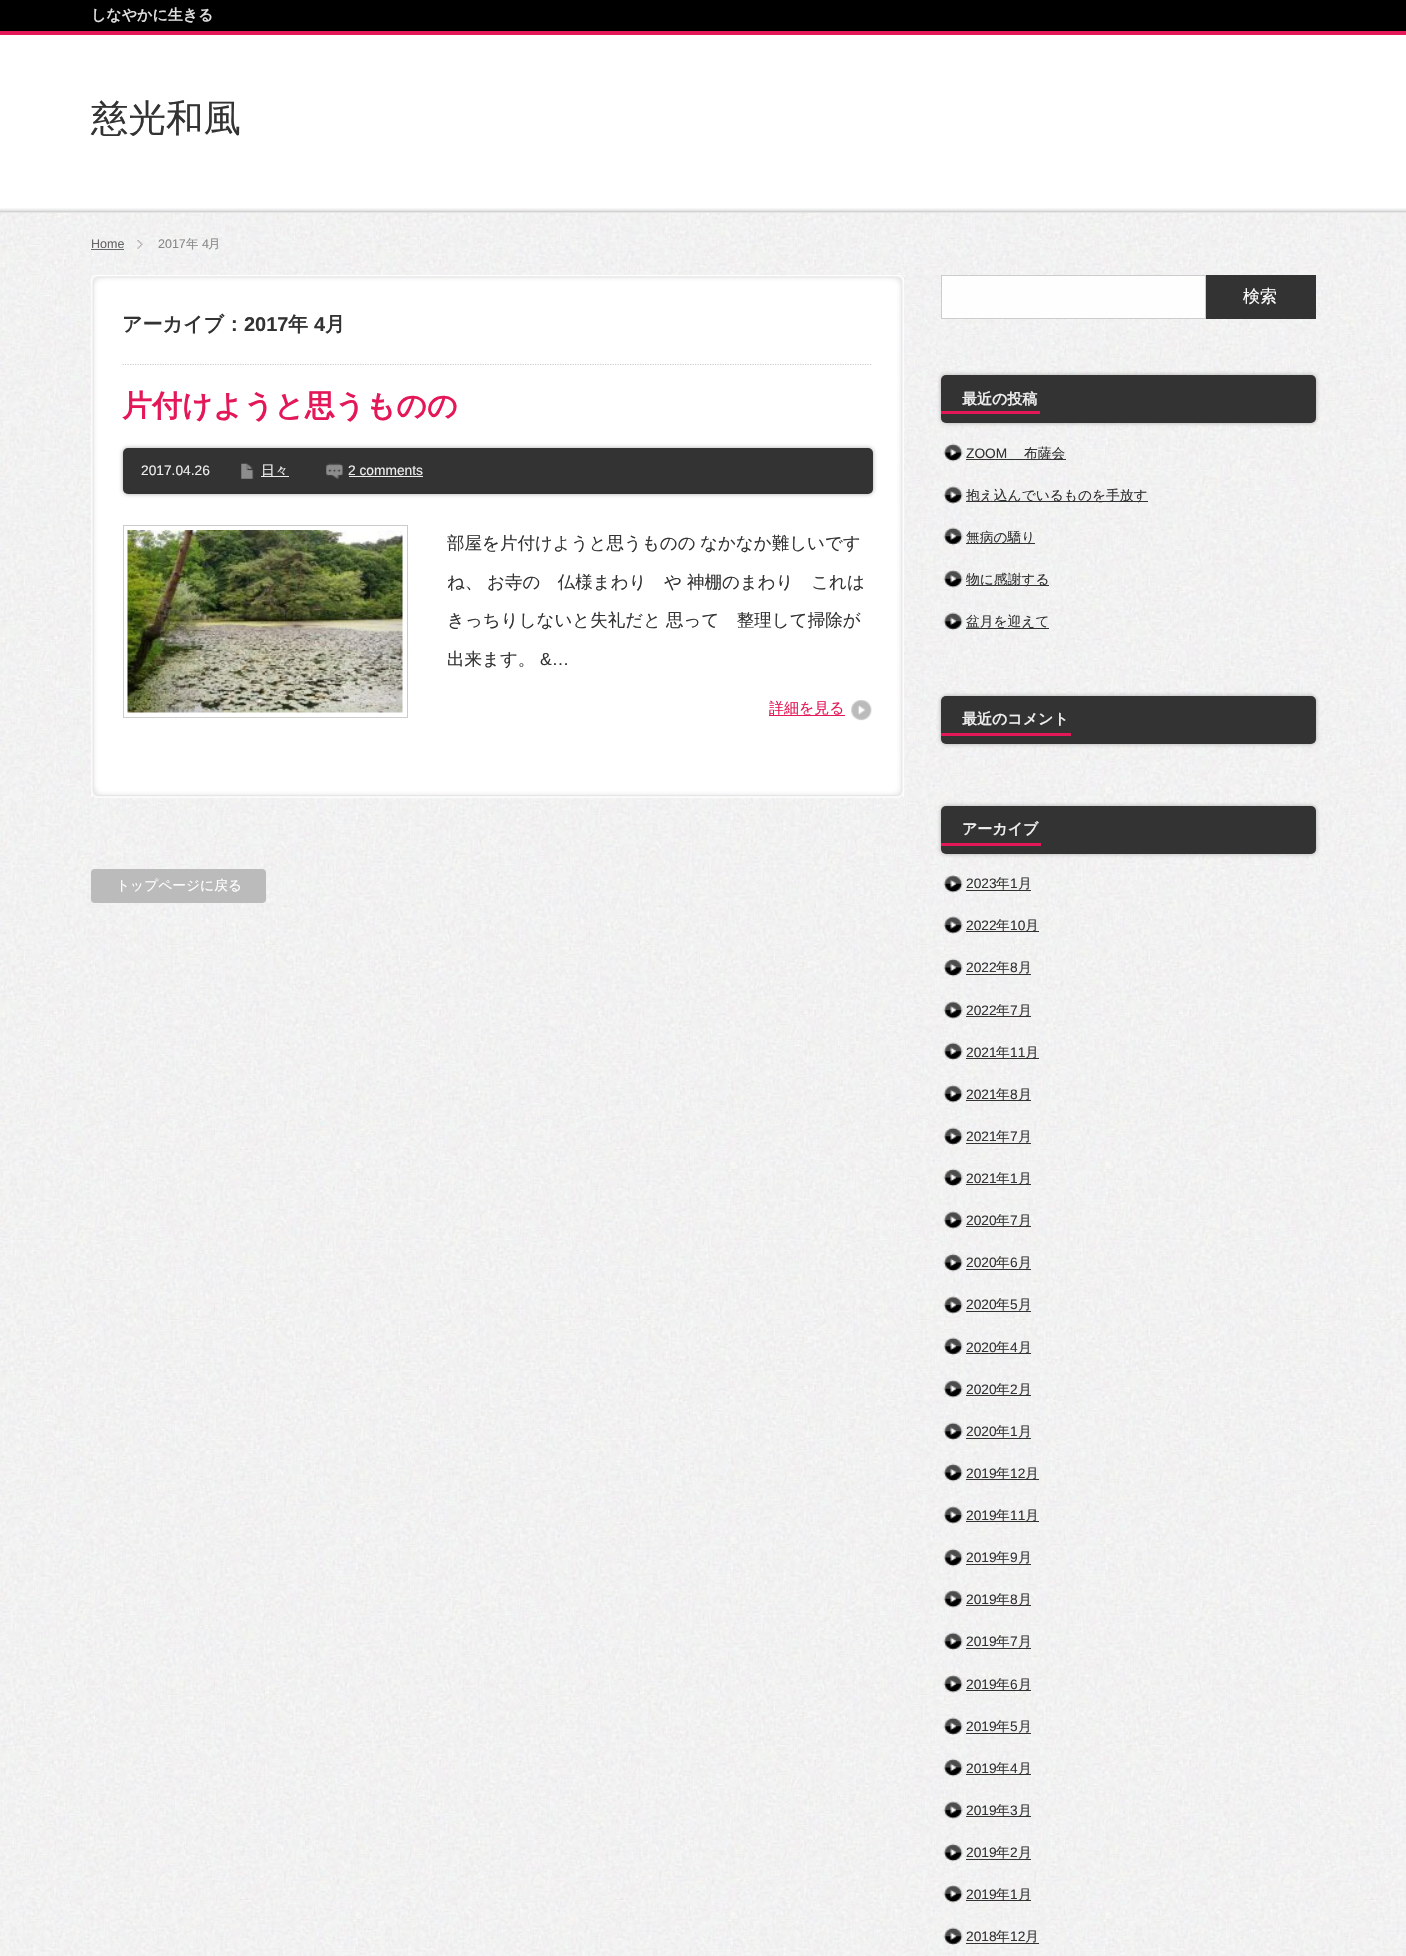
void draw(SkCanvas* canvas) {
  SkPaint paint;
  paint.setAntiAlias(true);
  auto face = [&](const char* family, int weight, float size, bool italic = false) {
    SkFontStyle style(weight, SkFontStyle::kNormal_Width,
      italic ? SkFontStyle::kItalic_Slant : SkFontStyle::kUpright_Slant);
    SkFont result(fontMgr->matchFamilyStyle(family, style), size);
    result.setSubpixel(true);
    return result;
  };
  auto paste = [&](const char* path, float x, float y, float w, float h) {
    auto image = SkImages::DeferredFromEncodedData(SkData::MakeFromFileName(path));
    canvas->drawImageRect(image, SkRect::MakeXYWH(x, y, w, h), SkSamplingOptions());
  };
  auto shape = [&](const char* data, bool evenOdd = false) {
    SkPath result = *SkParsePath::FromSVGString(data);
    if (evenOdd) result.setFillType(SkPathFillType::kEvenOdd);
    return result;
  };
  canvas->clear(0xffffffff);
  paste("img/1.png", 0, 213, 1406, 1743);
  paint.setColor(0xff000000);
  canvas->drawRect(SkRect::MakeXYWH(0, 0, 1406, 31), paint);
  paint.setColor(0xffe41858);
  canvas->drawRect(SkRect::MakeXYWH(0, 31, 1406, 4), paint);
  paste("img/2.png", 0, 208, 1406, 5);
  paste("img/3.png", 137, 240, 6, 9);
  paint.setColor(0xff666666);
  canvas->drawRect(SkRect::MakeXYWH(91, 249, 33, 1), paint);
  paste("img/4.png", 91, 275, 813, 523);
  paste("img/5.png", 91, 275, 813, 9);
  paste("img/6.png", 92, 787, 811, 11);
  paint.setStroke(true);
  paint.setStrokeWidth(1.2f);
  paint.setColor(0xffcccccc);
  paint.setPathEffect(SkDashPathEffect::Make({{1.25f, 1.25f}}, 0));
  canvas->drawPath(shape("M122.5 364.5H872.5"), paint);
  paint.setPathEffect(nullptr);
  paint.setStroke(false);
  paint.setColor(0xffaaaaaa);
  paint.setMaskFilter(SkMaskFilter::MakeBlur(kNormal_SkBlurStyle, 2));
  canvas->drawRoundRect(SkRect::MakeXYWH(123, 448, 750, 46), 5, 5, paint);
  paint.setMaskFilter(nullptr);
  paint.setColor(0xff333333);
  canvas->drawRoundRect(SkRect::MakeXYWH(123, 448, 750, 46), 5, 5, paint);
  paste("img/7.png", 241, 463, 13, 16);
  paint.setColor(0xffeeeeee);
  canvas->drawRect(SkRect::MakeXYWH(261, 476, 28, 1), paint);
  paste("img/8.png", 326, 463, 17, 16);
  canvas->drawRect(SkRect::MakeXYWH(349, 476, 74, 1), paint);
  paint.setStroke(true);
  paint.setStrokeWidth(1);
  paint.setColor(0xffcccccc);
  canvas->drawRect(SkRect::MakeXYWH(123.5f, 525.5f, 284, 192), paint);
  paste("img/9.png", 127, 530, 276, 183);
  paste("img/10.png", 851, 700, 21, 21);
  paint.setStroke(false);
  paint.setColor(0xffe41858);
  canvas->drawRect(SkRect::MakeXYWH(769, 715, 76, 1), paint);
  paint.setColor(0xffbbbbbb);
  canvas->drawRoundRect(SkRect::MakeXYWH(91, 869, 175, 34), 4, 4, paint);
  paint.setColor(0xfffefefe);
  canvas->drawRect(SkRect::MakeXYWH(941.5f, 275.5f, 264, 43), paint);
  paint.setStroke(true);
  paint.setColor(0xffcccccc);
  canvas->drawRect(SkRect::MakeXYWH(941.5f, 275.5f, 264, 43), paint);
  paint.setStroke(false);
  paint.setColor(0xff333333);
  canvas->drawRect(SkRect::MakeXYWH(1206, 275, 110, 44), paint);
  paint.setColor(0xffaaaaaa);
  paint.setMaskFilter(SkMaskFilter::MakeBlur(kNormal_SkBlurStyle, 2));
  canvas->drawRoundRect(SkRect::MakeXYWH(941, 375, 375, 48), 5, 5, paint);
  paint.setMaskFilter(nullptr);
  paint.setColor(0xff333333);
  canvas->drawRoundRect(SkRect::MakeXYWH(941, 375, 375, 48), 5, 5, paint);
  paint.setColor(0xffe41858);
  canvas->drawRect(SkRect::MakeXYWH(941, 411, 99, 3), paint);
  paste("img/11.png", 943, 443, 20, 19);
  paint.setColor(0xff333333);
  canvas->drawRect(SkRect::MakeXYWH(966, 459, 100, 1), paint);
  paste("img/12.png", 943, 486, 20, 18);
  canvas->drawRect(SkRect::MakeXYWH(966, 501, 182, 1), paint);
  paste("img/13.png", 943, 527, 20, 19);
  canvas->drawRect(SkRect::MakeXYWH(966, 543, 69, 1), paint);
  paste("img/14.png", 943, 570, 20, 18);
  canvas->drawRect(SkRect::MakeXYWH(966, 585, 83, 1), paint);
  paste("img/15.png", 943, 612, 20, 19);
  canvas->drawRect(SkRect::MakeXYWH(966, 628, 83, 1), paint);
  paint.setColor(0xffaaaaaa);
  paint.setMaskFilter(SkMaskFilter::MakeBlur(kNormal_SkBlurStyle, 2));
  canvas->drawRoundRect(SkRect::MakeXYWH(941, 696, 375, 48), 5, 5, paint);
  paint.setMaskFilter(nullptr);
  paint.setColor(0xff333333);
  canvas->drawRoundRect(SkRect::MakeXYWH(941, 696, 375, 48), 5, 5, paint);
  paint.setColor(0xffe41858);
  canvas->drawRect(SkRect::MakeXYWH(941, 733, 130, 3), paint);
  paint.setColor(0xffaaaaaa);
  paint.setMaskFilter(SkMaskFilter::MakeBlur(kNormal_SkBlurStyle, 2));
  canvas->drawRoundRect(SkRect::MakeXYWH(941, 806, 375, 48), 5, 5, paint);
  paint.setMaskFilter(nullptr);
  paint.setColor(0xff333333);
  canvas->drawRoundRect(SkRect::MakeXYWH(941, 806, 375, 48), 5, 5, paint);
  paint.setColor(0xffe41858);
  canvas->drawRect(SkRect::MakeXYWH(941, 843, 100, 3), paint);
  paste("img/16.png", 943, 875, 20, 18);
  paint.setColor(0xff333333);
  canvas->drawRect(SkRect::MakeXYWH(966, 890, 65, 1), paint);
  paste("img/17.png", 943, 916, 20, 18);
  canvas->drawRect(SkRect::MakeXYWH(966, 931, 73, 1), paint);
  paste("img/18.png", 943, 958, 20, 19);
  canvas->drawRect(SkRect::MakeXYWH(966, 974, 65, 1), paint);
  paste("img/19.png", 943, 1001, 20, 18);
  canvas->drawRect(SkRect::MakeXYWH(966, 1016, 65, 1), paint);
  paste("img/20.png", 943, 1042, 20, 19);
  canvas->drawRect(SkRect::MakeXYWH(966, 1058, 73, 1), paint);
  paste("img/21.png", 943, 1085, 20, 18);
  canvas->drawRect(SkRect::MakeXYWH(966, 1100, 65, 1), paint);
  paste("img/22.png", 943, 1127, 20, 19);
  canvas->drawRect(SkRect::MakeXYWH(966, 1143, 65, 1), paint);
  paste("img/23.png", 943, 1168, 20, 19);
  canvas->drawRect(SkRect::MakeXYWH(966, 1184, 65, 1), paint);
  paste("img/24.png", 943, 1211, 20, 18);
  canvas->drawRect(SkRect::MakeXYWH(966, 1226, 65, 1), paint);
  paste("img/25.png", 943, 1253, 20, 19);
  canvas->drawRect(SkRect::MakeXYWH(966, 1269, 65, 1), paint);
  paste("img/26.png", 943, 1296, 20, 18);
  canvas->drawRect(SkRect::MakeXYWH(966, 1311, 65, 1), paint);
  paste("img/27.png", 943, 1337, 20, 19);
  canvas->drawRect(SkRect::MakeXYWH(966, 1353, 65, 1), paint);
  paste("img/28.png", 943, 1380, 20, 18);
  canvas->drawRect(SkRect::MakeXYWH(966, 1395, 65, 1), paint);
  paste("img/29.png", 943, 1422, 20, 19);
  canvas->drawRect(SkRect::MakeXYWH(966, 1438, 65, 1), paint);
  paste("img/30.png", 943, 1463, 20, 19);
  canvas->drawRect(SkRect::MakeXYWH(966, 1479, 73, 1), paint);
  paste("img/31.png", 943, 1506, 20, 18);
  canvas->drawRect(SkRect::MakeXYWH(966, 1521, 73, 1), paint);
  paste("img/32.png", 943, 1548, 20, 19);
  canvas->drawRect(SkRect::MakeXYWH(966, 1564, 65, 1), paint);
  paste("img/33.png", 943, 1590, 20, 18);
  canvas->drawRect(SkRect::MakeXYWH(966, 1605, 65, 1), paint);
  paste("img/34.png", 943, 1632, 20, 19);
  canvas->drawRect(SkRect::MakeXYWH(966, 1648, 65, 1), paint);
  paste("img/35.png", 943, 1675, 20, 18);
  canvas->drawRect(SkRect::MakeXYWH(966, 1690, 65, 1), paint);
  paste("img/36.png", 943, 1717, 20, 19);
  canvas->drawRect(SkRect::MakeXYWH(966, 1733, 65, 1), paint);
  paste("img/37.png", 943, 1758, 20, 19);
  canvas->drawRect(SkRect::MakeXYWH(966, 1774, 65, 1), paint);
  paste("img/38.png", 943, 1801, 20, 18);
  canvas->drawRect(SkRect::MakeXYWH(966, 1816, 65, 1), paint);
  paste("img/39.png", 943, 1843, 20, 19);
  canvas->drawRect(SkRect::MakeXYWH(966, 1859, 65, 1), paint);
  paste("img/40.png", 943, 1885, 20, 18);
  canvas->drawRect(SkRect::MakeXYWH(966, 1900, 65, 1), paint);
  paste("img/41.png", 943, 1927, 20, 19);
  canvas->drawRect(SkRect::MakeXYWH(966, 1943, 73, 1), paint);
  auto f0 = face("WenQuanYi Zen Hei", 700, 15);
  paint.setColor(0xffdddddd);
  canvas->drawString("しなやかに生きる", 91, 20, f0, paint);
  auto f1 = face("WenQuanYi Zen Hei", 500, 37.5f);
  paint.setColor(0xff333333);
  canvas->drawString("慈光和風", 91, 131, f1, paint);
  auto f2 = face("Liberation Sans", 400, 12.5f);
  paint.setColor(0xff666666);
  canvas->drawString("Home", 91, 248, f2, paint);
  paint.setColor(0xff888888);
  canvas->drawString("2017", 158, 248, f2, paint);
  auto f3 = face("WenQuanYi Zen Hei", 500, 12.5f);
  canvas->drawString("年", 186, 248, f3, paint);
  canvas->drawString("4", 202, 248, f2, paint);
  canvas->drawString("月", 208, 248, f3, paint);
  auto f4 = face("WenQuanYi Zen Hei", 700, 20);
  paint.setColor(0xff333333);
  canvas->drawString("アーカイブ：", 122, 331, f4, paint);
  auto f5 = face("Liberation Sans", 700, 20);
  canvas->drawString("2017", 244, 331, f5, paint);
  canvas->drawString("年", 288, 331, f4, paint);
  canvas->drawString("4", 314, 331, f5, paint);
  canvas->drawString("月", 325, 331, f4, paint);
  auto f6 = face("WenQuanYi Zen Hei", 700, 30);
  paint.setColor(0xffe41858);
  canvas->drawString("片付けようと思うものの", 122, 416, f6, paint);
  auto f7 = face("Liberation Sans", 400, 13.75f);
  paint.setColor(0xffeeeeee);
  canvas->drawString("2017.04.26", 141, 475, f7, paint);
  auto f8 = face("WenQuanYi Zen Hei", 500, 13.75f);
  canvas->drawString("日々", 261, 475, f8, paint);
  canvas->drawString("2 comments", 348, 475, f7, paint);
  auto f9 = face("WenQuanYi Zen Hei", 500, 17.5f);
  paint.setColor(0xff333333);
  {
    const struct { const char* s; float x, y; } items[] = {
      {"部屋を片付けようと思うものの", 447, 549},
      {"なかなか難しいです", 700, 549},
      {"ね、", 447, 588},
      {"お寺の　仏様まわり　や", 487, 588},
      {"神棚のまわり　これは", 687, 588},
      {"きっちりしないと失礼だと", 447, 626},
      {"思って　整理して掃除が", 666, 626},
      {"出来ます。", 447, 665},
    };
    for (auto [s, x, y] : items) {
      canvas->drawString(s, x, y, f9, paint);
    }
  }
  auto f10 = face("Liberation Sans", 400, 17.5f);
  canvas->drawString("&…", 540, 665, f10, paint);
  auto f11 = face("WenQuanYi Zen Hei", 500, 15);
  paint.setColor(0xffe41858);
  canvas->drawString("詳細を見る", 769, 713, f11, paint);
  paint.setColor(0xffffffff);
  canvas->drawString("トップページに戻る", 116, 890, f8, paint);
  auto f12 = face("WenQuanYi Zen Hei", 500, 17);
  canvas->drawString("検索", 1243, 302, f12, paint);
  paint.setColor(0xffeeeeee);
  canvas->drawString("最近の投稿", 962, 404, f0, paint);
  paint.setColor(0xff333333);
  canvas->drawString("ZOOM", 966, 458, f7, paint);
  {
    const struct { const char* s; float x, y; } items[] = {
      {"布薩会", 1024, 458},
      {"抱え込んでいるものを手放す", 966, 500},
      {"無病の驕り", 966, 542},
      {"物に感謝する", 966, 584},
      {"盆月を迎えて", 966, 626},
    };
    for (auto [s, x, y] : items) {
      canvas->drawString(s, x, y, f8, paint);
    }
  }
  paint.setColor(0xffeeeeee);
  canvas->drawString("最近のコメント", 962, 724, f0, paint);
  canvas->drawString("アーカイブ", 962, 834, f0, paint);
  paint.setColor(0xff333333);
  canvas->drawString("2023", 966, 888, f7, paint);
  canvas->drawString("年", 996, 888, f8, paint);
  canvas->drawString("1", 1010, 888, f7, paint);
  canvas->drawString("月", 1018, 888, f8, paint);
  canvas->drawString("2022", 966, 930, f7, paint);
  canvas->drawString("年", 996, 930, f8, paint);
  canvas->drawString("10", 1010, 930, f7, paint);
  canvas->drawString("月", 1025, 930, f8, paint);
  canvas->drawString("2022", 966, 972, f7, paint);
  canvas->drawString("年", 996, 972, f8, paint);
  canvas->drawString("8", 1010, 972, f7, paint);
  canvas->drawString("月", 1018, 972, f8, paint);
  canvas->drawString("2022", 966, 1015, f7, paint);
  canvas->drawString("年", 996, 1015, f8, paint);
  canvas->drawString("7", 1010, 1015, f7, paint);
  canvas->drawString("月", 1018, 1015, f8, paint);
  canvas->drawString("2021", 966, 1057, f7, paint);
  canvas->drawString("年", 996, 1057, f8, paint);
  canvas->drawString("11", 1010, 1057, f7, paint);
  canvas->drawString("月", 1025, 1057, f8, paint);
  canvas->drawString("2021", 966, 1099, f7, paint);
  canvas->drawString("年", 996, 1099, f8, paint);
  canvas->drawString("8", 1010, 1099, f7, paint);
  canvas->drawString("月", 1018, 1099, f8, paint);
  canvas->drawString("2021", 966, 1141, f7, paint);
  canvas->drawString("年", 996, 1141, f8, paint);
  canvas->drawString("7", 1010, 1141, f7, paint);
  canvas->drawString("月", 1018, 1141, f8, paint);
  canvas->drawString("2021", 966, 1183, f7, paint);
  canvas->drawString("年", 996, 1183, f8, paint);
  canvas->drawString("1", 1010, 1183, f7, paint);
  canvas->drawString("月", 1018, 1183, f8, paint);
  canvas->drawString("2020", 966, 1225, f7, paint);
  canvas->drawString("年", 996, 1225, f8, paint);
  canvas->drawString("7", 1010, 1225, f7, paint);
  canvas->drawString("月", 1018, 1225, f8, paint);
  canvas->drawString("2020", 966, 1267, f7, paint);
  canvas->drawString("年", 996, 1267, f8, paint);
  canvas->drawString("6", 1010, 1267, f7, paint);
  canvas->drawString("月", 1018, 1267, f8, paint);
  canvas->drawString("2020", 966, 1309, f7, paint);
  canvas->drawString("年", 996, 1309, f8, paint);
  canvas->drawString("5", 1010, 1309, f7, paint);
  canvas->drawString("月", 1018, 1309, f8, paint);
  canvas->drawString("2020", 966, 1352, f7, paint);
  canvas->drawString("年", 996, 1352, f8, paint);
  canvas->drawString("4", 1010, 1352, f7, paint);
  canvas->drawString("月", 1018, 1352, f8, paint);
  canvas->drawString("2020", 966, 1394, f7, paint);
  canvas->drawString("年", 996, 1394, f8, paint);
  canvas->drawString("2", 1010, 1394, f7, paint);
  canvas->drawString("月", 1018, 1394, f8, paint);
  canvas->drawString("2020", 966, 1436, f7, paint);
  canvas->drawString("年", 996, 1436, f8, paint);
  canvas->drawString("1", 1010, 1436, f7, paint);
  canvas->drawString("月", 1018, 1436, f8, paint);
  canvas->drawString("2019", 966, 1478, f7, paint);
  canvas->drawString("年", 996, 1478, f8, paint);
  canvas->drawString("12", 1010, 1478, f7, paint);
  canvas->drawString("月", 1025, 1478, f8, paint);
  canvas->drawString("2019", 966, 1520, f7, paint);
  canvas->drawString("年", 996, 1520, f8, paint);
  canvas->drawString("11", 1010, 1520, f7, paint);
  canvas->drawString("月", 1025, 1520, f8, paint);
  canvas->drawString("2019", 966, 1562, f7, paint);
  canvas->drawString("年", 996, 1562, f8, paint);
  canvas->drawString("9", 1010, 1562, f7, paint);
  canvas->drawString("月", 1018, 1562, f8, paint);
  canvas->drawString("2019", 966, 1604, f7, paint);
  canvas->drawString("年", 996, 1604, f8, paint);
  canvas->drawString("8", 1010, 1604, f7, paint);
  canvas->drawString("月", 1018, 1604, f8, paint);
  canvas->drawString("2019", 966, 1646, f7, paint);
  canvas->drawString("年", 996, 1646, f8, paint);
  canvas->drawString("7", 1010, 1646, f7, paint);
  canvas->drawString("月", 1018, 1646, f8, paint);
  canvas->drawString("2019", 966, 1689, f7, paint);
  canvas->drawString("年", 996, 1689, f8, paint);
  canvas->drawString("6", 1010, 1689, f7, paint);
  canvas->drawString("月", 1018, 1689, f8, paint);
  canvas->drawString("2019", 966, 1731, f7, paint);
  canvas->drawString("年", 996, 1731, f8, paint);
  canvas->drawString("5", 1010, 1731, f7, paint);
  canvas->drawString("月", 1018, 1731, f8, paint);
  canvas->drawString("2019", 966, 1773, f7, paint);
  canvas->drawString("年", 996, 1773, f8, paint);
  canvas->drawString("4", 1010, 1773, f7, paint);
  canvas->drawString("月", 1018, 1773, f8, paint);
  canvas->drawString("2019", 966, 1815, f7, paint);
  canvas->drawString("年", 996, 1815, f8, paint);
  canvas->drawString("3", 1010, 1815, f7, paint);
  canvas->drawString("月", 1018, 1815, f8, paint);
  canvas->drawString("2019", 966, 1857, f7, paint);
  canvas->drawString("年", 996, 1857, f8, paint);
  canvas->drawString("2", 1010, 1857, f7, paint);
  canvas->drawString("月", 1018, 1857, f8, paint);
  canvas->drawString("2019", 966, 1899, f7, paint);
  canvas->drawString("年", 996, 1899, f8, paint);
  canvas->drawString("1", 1010, 1899, f7, paint);
  canvas->drawString("月", 1018, 1899, f8, paint);
  canvas->drawString("2018", 966, 1941, f7, paint);
  canvas->drawString("年", 996, 1941, f8, paint);
  canvas->drawString("12", 1010, 1941, f7, paint);
  canvas->drawString("月", 1025, 1941, f8, paint);
}
